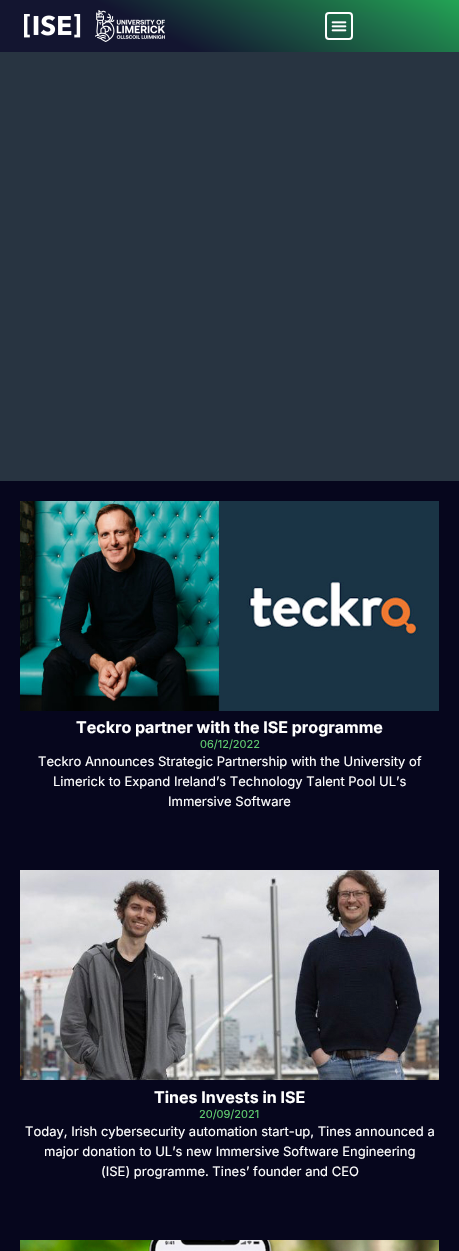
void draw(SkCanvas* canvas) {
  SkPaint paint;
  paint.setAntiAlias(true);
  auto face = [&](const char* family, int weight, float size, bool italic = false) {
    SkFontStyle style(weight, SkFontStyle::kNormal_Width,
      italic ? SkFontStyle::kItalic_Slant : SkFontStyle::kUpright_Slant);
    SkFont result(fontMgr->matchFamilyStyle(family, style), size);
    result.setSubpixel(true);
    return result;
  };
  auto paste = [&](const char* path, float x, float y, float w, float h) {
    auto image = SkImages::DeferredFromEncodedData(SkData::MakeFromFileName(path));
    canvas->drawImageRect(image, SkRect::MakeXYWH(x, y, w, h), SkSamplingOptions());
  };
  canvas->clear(0xff283441);
  {
    const SkColor colors[] = {0xff23a455, 0xff131530};
    const float stops[] = {0, 0.65f};
    const SkPoint ends[] = {{287, -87}, {172, 139}};
    paint.setShader(SkGradientShader::MakeLinear(ends, colors, stops, 2, SkTileMode::kClamp));
    paint.setAlpha(255);
  }
  canvas->drawRect(SkRect::MakeXYWH(0, 0, 459, 52), paint);
  {
    const SkColor colors[] = {0xff24a257, 0xff141633};
    const float stops[] = {0, 0.65f};
    const SkPoint ends[] = {{287, -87}, {172, 139}};
    paint.setShader(SkGradientShader::MakeLinear(ends, colors, stops, 2, SkTileMode::kClamp));
    paint.setAlpha(255);
  }
  canvas->drawRect(SkRect::MakeXYWH(240, 12, 199, 28), paint);
  paste("img/1.png", 24, 14, 57, 24);
  paste("img/2.png", 95, 10, 70, 32);
  paint.setStroke(true);
  paint.setStrokeWidth(2);
  paint.setShader(nullptr);
  paint.setColor(0xffffffff);
  canvas->drawRoundRect(SkRect::MakeXYWH(326, 13, 26, 26), 3, 3, paint);
  paste("img/3.png", 331, 21, 16, 11);
  paint.setStroke(false);
  paint.setColor(0xff06061d);
  canvas->drawRect(SkRect::MakeXYWH(0, 481, 459, 770), paint);
  paste("img/4.png", 20, 501, 419, 210);
  paste("img/5.png", 20, 870, 419, 210);
  paste("img/6.png", 20, 1240, 419, 11);
  auto f0 = face("Inter", 700, 16);
  paint.setColor(0xffffffff);
  canvas->drawString("Teckro partner with the ISE programme", 76, 733, f0, paint);
  auto f1 = face("Inter", 400, 11);
  paint.setColor(0xff61ce70);
  canvas->drawString("06/12/2022", 200, 748, f1, paint);
  auto f2 = face("Inter", 400, 13);
  paint.setColor(0xffffffff);
  {
    const struct { const char* s; float x, y; } items[] = {
      {"Teckro Announces Strategic Partnership with the University of", 38, 766},
      {"Limerick to Expand Ireland’s Technology Talent Pool UL’s", 53, 786},
      {"Immersive Software", 168, 806},
    };
    for (auto [s, x, y] : items) {
      canvas->drawString(s, x, y, f2, paint);
    }
  }
  canvas->drawString("Tines Invests in ISE", 154, 1103, f0, paint);
  paint.setColor(0xff61ce70);
  canvas->drawString("20/09/2021", 199, 1118, f1, paint);
  paint.setColor(0xffffffff);
  {
    const struct { const char* s; float x, y; } items[] = {
      {"Today, Irish cybersecurity automation start-up, Tines announced a", 25, 1136},
      {"major donation to UL’s new Immersive Software Engineering", 44, 1156},
      {"(ISE) programme. Tines’ founder and CEO", 101, 1176},
    };
    for (auto [s, x, y] : items) {
      canvas->drawString(s, x, y, f2, paint);
    }
  }
}
